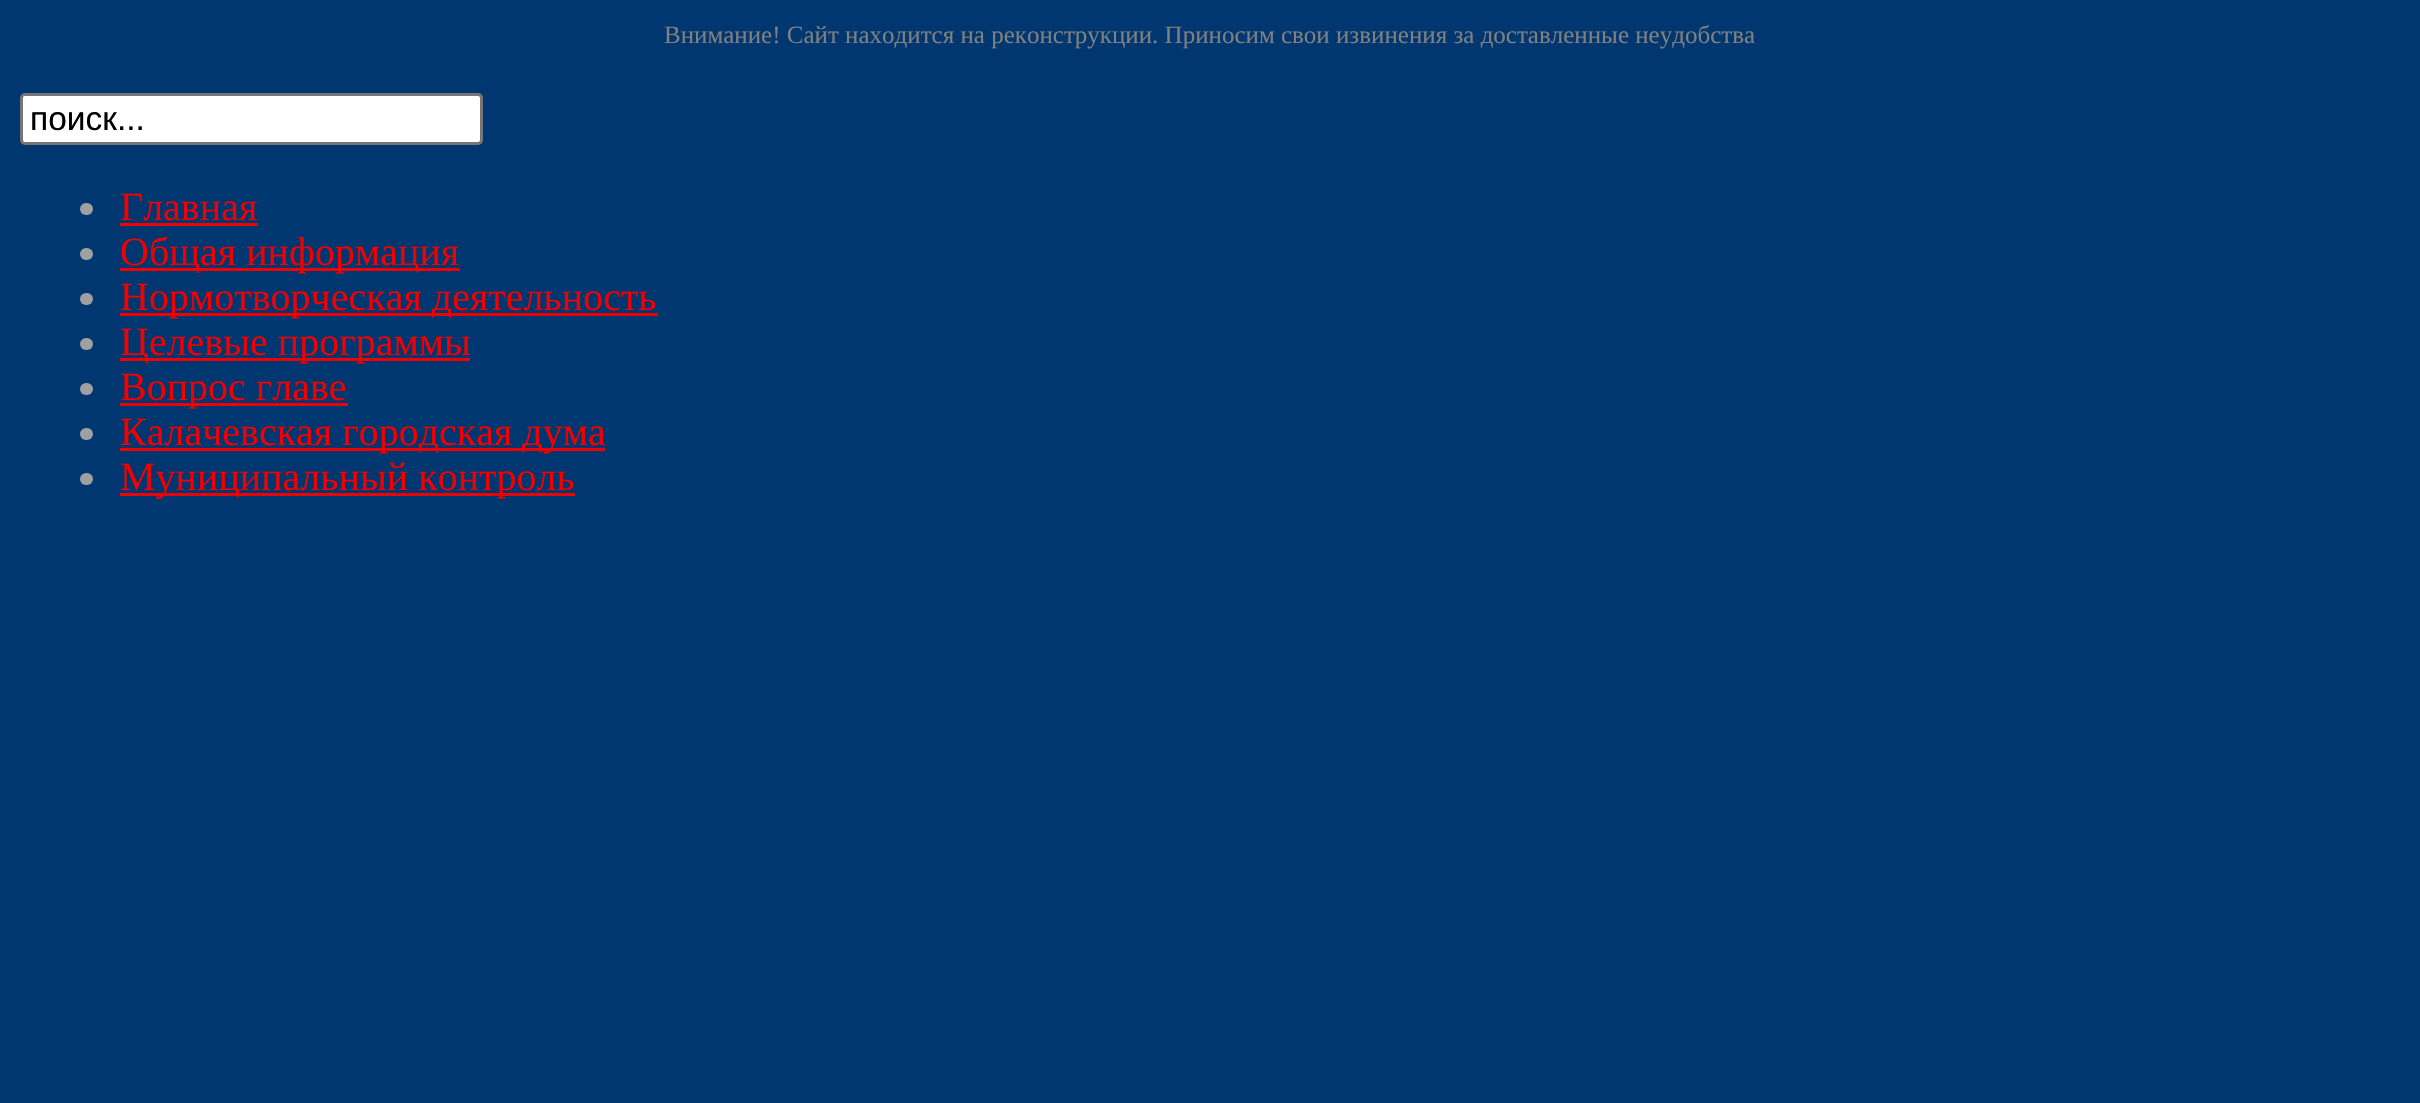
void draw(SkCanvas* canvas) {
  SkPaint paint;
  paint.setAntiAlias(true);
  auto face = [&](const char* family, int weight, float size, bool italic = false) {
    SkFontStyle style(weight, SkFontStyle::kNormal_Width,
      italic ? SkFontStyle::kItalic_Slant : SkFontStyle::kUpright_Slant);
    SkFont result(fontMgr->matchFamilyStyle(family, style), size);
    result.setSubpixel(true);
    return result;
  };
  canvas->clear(0xff003770);
  paint.setColor(0xffffffff);
  canvas->drawRoundRect(SkRect::MakeXYWH(21.5f, 94.5f, 460, 49), 3.5f, 3.5f, paint);
  paint.setStroke(true);
  paint.setStrokeWidth(3);
  paint.setColor(0xff767676);
  canvas->drawRoundRect(SkRect::MakeXYWH(21.5f, 94.5f, 460, 49), 3.5f, 3.5f, paint);
  paint.setStroke(false);
  paint.setColor(0xffa0a0a0);
  canvas->drawRoundRect(SkRect::MakeXYWH(80, 203, 13, 12), 6, 6, paint);
  paint.setColor(0xfff00000);
  canvas->drawRect(SkRect::MakeXYWH(120, 223, 138, 3), paint);
  paint.setColor(0xffa0a0a0);
  canvas->drawRoundRect(SkRect::MakeXYWH(80, 248, 13, 12), 6, 6, paint);
  paint.setColor(0xfff00000);
  canvas->drawRect(SkRect::MakeXYWH(120, 268, 340, 3), paint);
  paint.setColor(0xffa0a0a0);
  canvas->drawRoundRect(SkRect::MakeXYWH(80, 293, 13, 12), 6, 6, paint);
  paint.setColor(0xfff00000);
  canvas->drawRect(SkRect::MakeXYWH(120, 313, 538, 3), paint);
  paint.setColor(0xffa0a0a0);
  canvas->drawRoundRect(SkRect::MakeXYWH(80, 338, 13, 12), 6, 6, paint);
  paint.setColor(0xfff00000);
  canvas->drawRect(SkRect::MakeXYWH(120, 358, 350, 3), paint);
  paint.setColor(0xffa0a0a0);
  canvas->drawRoundRect(SkRect::MakeXYWH(80, 383, 13, 12), 6, 6, paint);
  paint.setColor(0xfff00000);
  canvas->drawRect(SkRect::MakeXYWH(120, 403, 228, 3), paint);
  paint.setColor(0xffa0a0a0);
  canvas->drawRoundRect(SkRect::MakeXYWH(80, 428, 13, 12), 6, 6, paint);
  paint.setColor(0xfff00000);
  canvas->drawRect(SkRect::MakeXYWH(120, 448, 485, 3), paint);
  paint.setColor(0xffa0a0a0);
  canvas->drawRoundRect(SkRect::MakeXYWH(80, 473, 13, 12), 6, 6, paint);
  paint.setColor(0xfff00000);
  canvas->drawRect(SkRect::MakeXYWH(120, 493, 455, 3), paint);
  auto f0 = face("Liberation Serif", 400, 25);
  paint.setColor(0xff808080);
  canvas->drawString("Внимание! Сайт находится на реконструкции. Приносим свои извинения за доставленные неудобства", 664, 43, f0, paint);
  auto f1 = face("Liberation Sans", 400, 33.5f);
  paint.setColor(0xff000000);
  canvas->drawString("поиск...", 30, 130, f1, paint);
  auto f2 = face("Liberation Serif", 400, 40);
  paint.setColor(0xfff00000);
  {
    const struct { const char* s; float x, y; } items[] = {
      {"Главная", 120, 220},
      {"Общая информация", 120, 265},
      {"Нормотворческая деятельность", 120, 310},
      {"Целевые программы", 120, 355},
      {"Вопрос главе", 120, 400},
      {"Калачевская городская дума", 120, 445},
      {"Муниципальный контроль", 120, 490},
    };
    for (auto [s, x, y] : items) {
      canvas->drawString(s, x, y, f2, paint);
    }
  }
}
